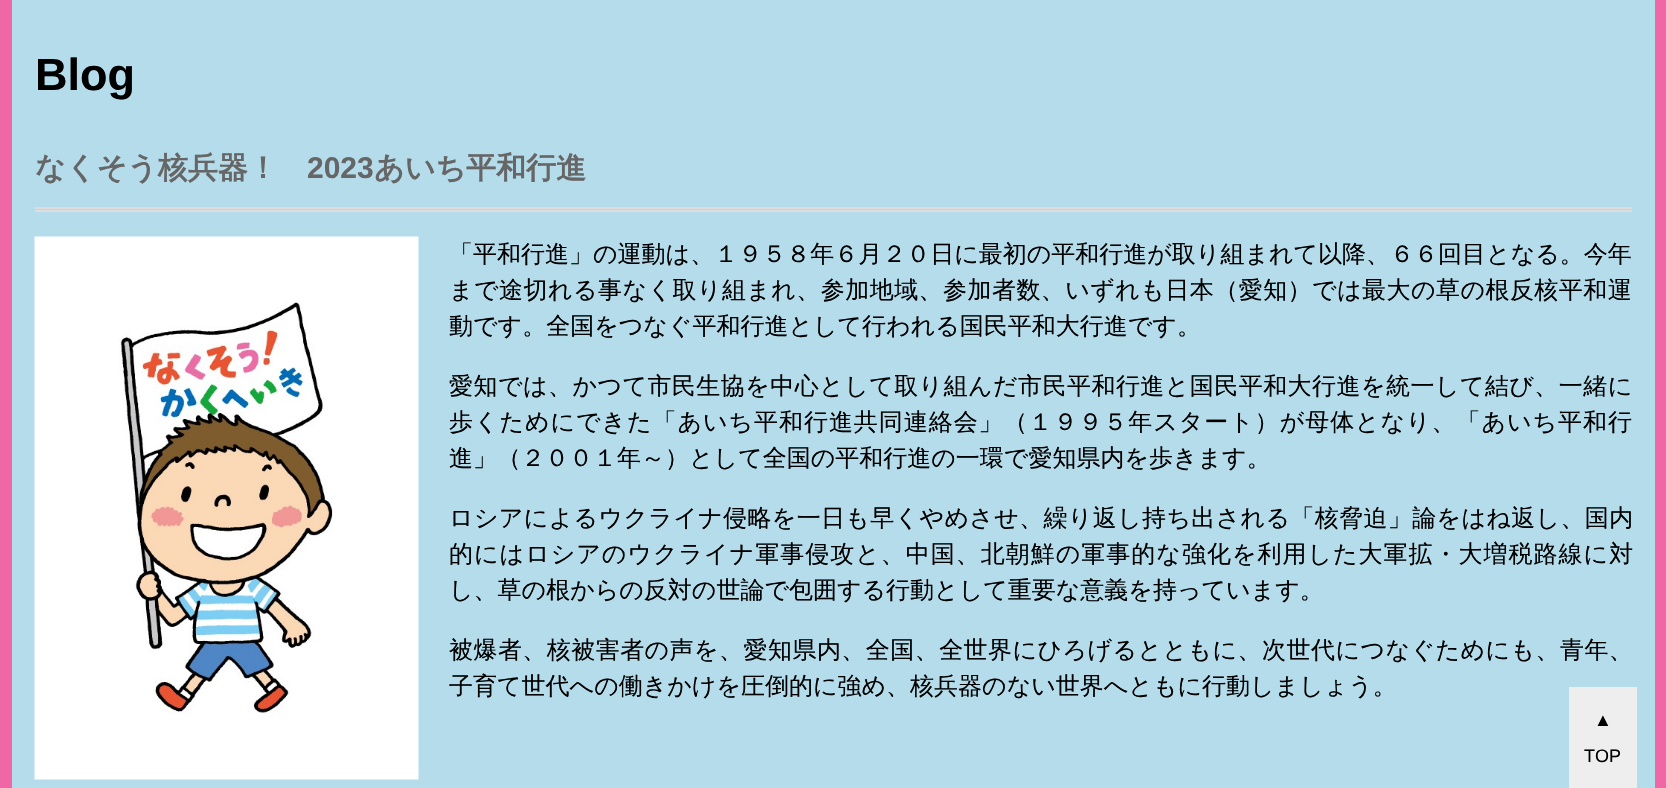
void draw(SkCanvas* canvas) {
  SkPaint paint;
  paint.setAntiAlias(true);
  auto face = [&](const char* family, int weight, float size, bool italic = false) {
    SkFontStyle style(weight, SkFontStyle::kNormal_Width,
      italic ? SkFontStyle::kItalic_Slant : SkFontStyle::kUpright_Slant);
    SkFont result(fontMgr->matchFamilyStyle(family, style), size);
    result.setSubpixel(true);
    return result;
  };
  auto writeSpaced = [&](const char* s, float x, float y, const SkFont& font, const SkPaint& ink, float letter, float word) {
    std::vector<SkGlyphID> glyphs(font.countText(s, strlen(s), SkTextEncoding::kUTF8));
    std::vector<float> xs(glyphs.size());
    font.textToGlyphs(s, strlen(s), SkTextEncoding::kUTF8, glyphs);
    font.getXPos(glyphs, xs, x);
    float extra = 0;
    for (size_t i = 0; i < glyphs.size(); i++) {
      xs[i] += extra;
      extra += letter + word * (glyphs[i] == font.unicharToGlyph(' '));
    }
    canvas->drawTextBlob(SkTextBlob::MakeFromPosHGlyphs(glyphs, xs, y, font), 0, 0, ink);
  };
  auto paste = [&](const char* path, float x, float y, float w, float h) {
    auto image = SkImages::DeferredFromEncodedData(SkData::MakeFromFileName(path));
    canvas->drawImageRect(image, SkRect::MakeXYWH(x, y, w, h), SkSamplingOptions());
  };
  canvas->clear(0xfff067a6);
  {
    const struct { float x, y, w, h; SkColor color; } items[] = {
      {12, 0, 1643, 788, 0xffb4dceb},
      {35, 207, 1597, 2, 0xffdddddd},
      {35, 210, 1597, 2, 0xffdddddd},
    };
    for (auto [x, y, w, h, color] : items) {
      paint.setColor(color);
      canvas->drawRect(SkRect::MakeXYWH(x, y, w, h), paint);
    }
  }
  paste("img/1.png", 34, 236, 385, 544);
  paint.setColor(0xffeeeeee);
  canvas->drawRect(SkRect::MakeXYWH(1569, 687, 68, 101), paint);
  auto f0 = face("Liberation Sans", 700, 45);
  paint.setColor(0xff000000);
  canvas->drawString("Blog", 35, 90, f0, paint);
  auto f1 = face("WenQuanYi Zen Hei", 700, 30);
  paint.setColor(0xff666666);
  canvas->drawString("なくそう核兵器！", 35, 178, f1, paint);
  auto f2 = face("Liberation Sans", 700, 30);
  canvas->drawString("2023", 307, 178, f2, paint);
  canvas->drawString("あいち平和行進", 374, 178, f1, paint);
  auto f3 = face("WenQuanYi Zen Hei", 500, 24);
  paint.setColor(0xff000000);
  canvas->drawString("「平和行進」の運動は、１９５８年６月２０日に最初の平和行進が取り組まれて以降、６６回目となる。今年", 449, 262, f3, paint);
  writeSpaced("まで途切れる事なく取り組まれ、参加地域、参加者数、いずれも日本（愛知）では最大の草の根反核平和運", 449, 298, f3, paint, 0.45f, 0);
  canvas->drawString("動です。全国をつなぐ平和行進として行われる国民平和大行進です。", 449, 334, f3, paint);
  writeSpaced("愛知では、かつて市民生協を中心として取り組んだ市民平和行進と国民平和大行進を統一して結び、一緒に", 449, 394, f3, paint, 0.45f, 0);
  writeSpaced("歩くためにできた「あいち平和行進共同連絡会」（１９９５年スタート）が母体となり、「あいち平和行", 449, 430, f3, paint, 0.95f, 0);
  canvas->drawString("進」（２００１年～）として全国の平和行進の一環で愛知県内を歩きます。", 449, 466, f3, paint);
  writeSpaced("ロシアによるウクライナ侵略を一日も早くやめさせ、繰り返し持ち出される「核脅迫」論をはね返し、国内", 449, 526, f3, paint, 0.35f, 0);
  writeSpaced("的にはロシアのウクライナ軍事侵攻と、中国、北朝鮮の軍事的な強化を利用した大軍拡・大増税路線に対", 449, 562, f3, paint, 1, 0);
  canvas->drawString("し、草の根からの反対の世論で包囲する行動として重要な意義を持っています。", 449, 598, f3, paint);
  writeSpaced("被爆者、核被害者の声を、愛知県内、全国、全世界にひろげるとともに、次世代につなぐためにも、青年、", 449, 658, f3, paint, 0.45f, 0);
  canvas->drawString("子育て世代への働きかけを圧倒的に強め、核兵器のない世界へともに行動しましょう。", 449, 694, f3, paint);
  auto f4 = face("Liberation Sans", 400, 18);
  canvas->drawString("▲", 1594, 726, f4, paint);
  canvas->drawString("TOP", 1584, 762, f4, paint);
}
